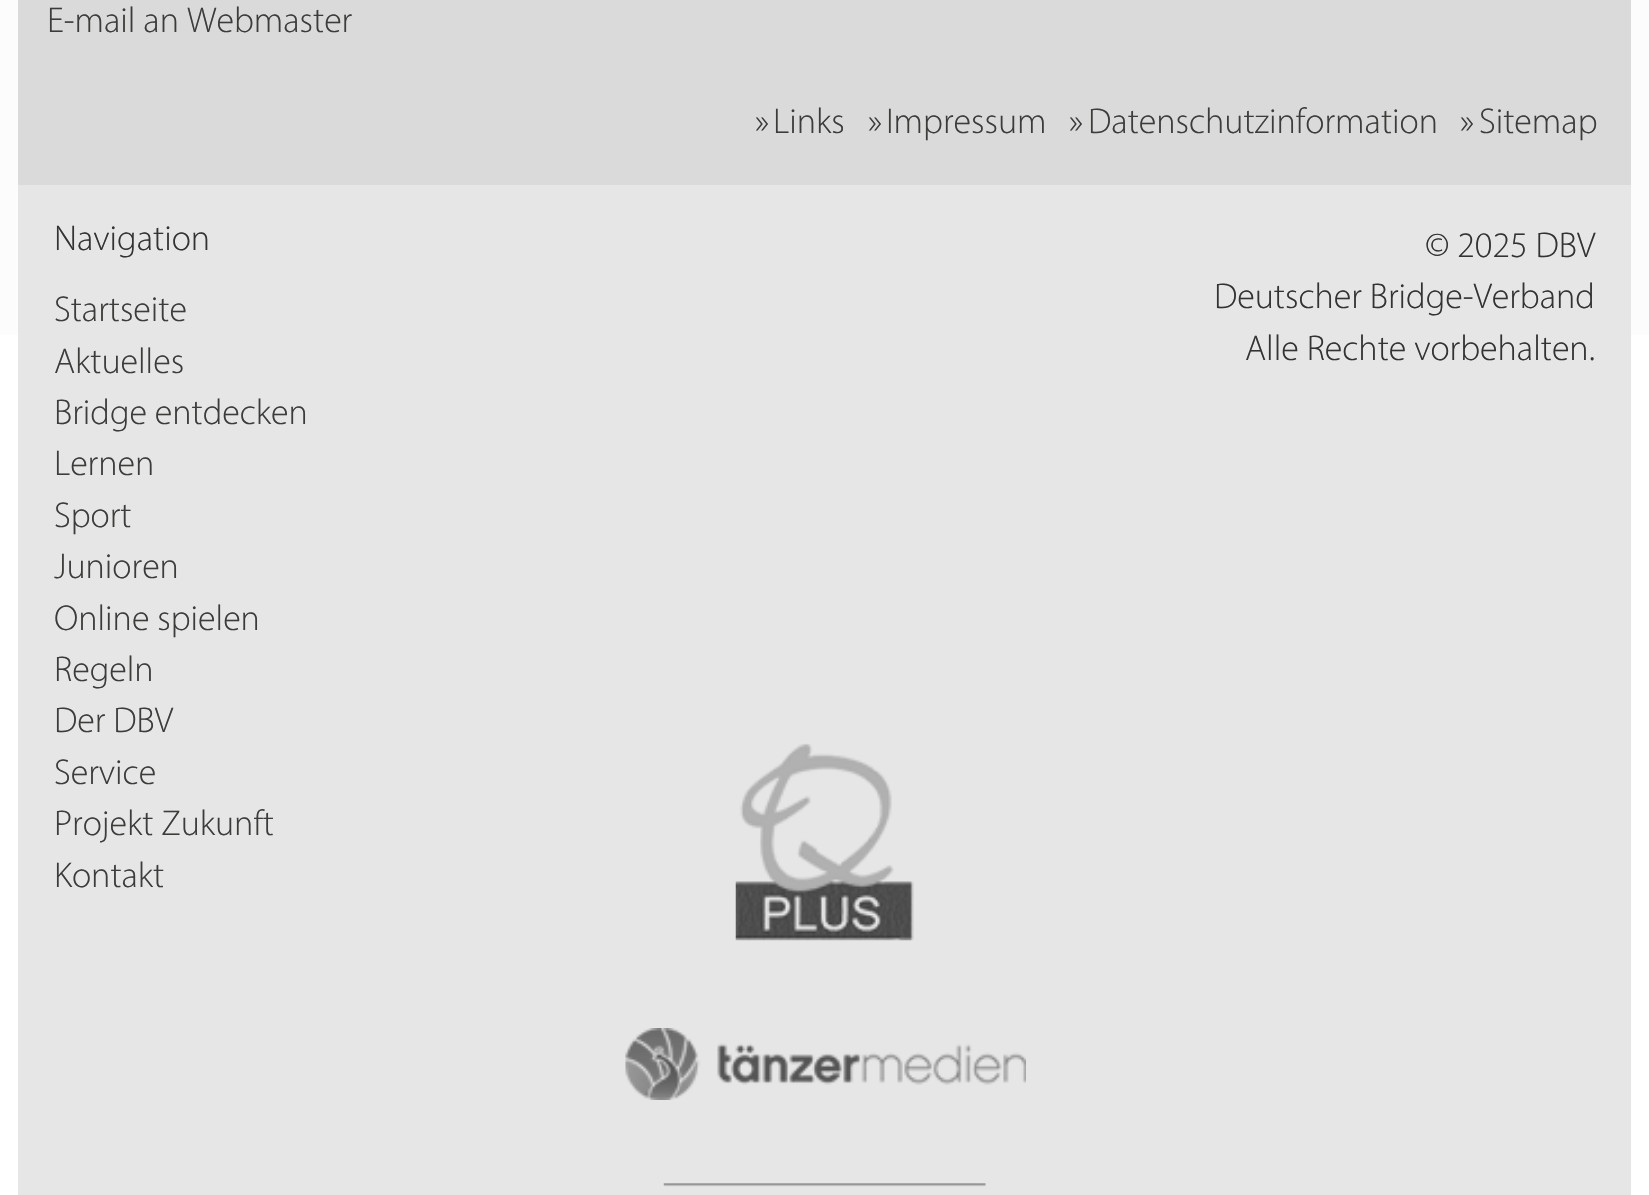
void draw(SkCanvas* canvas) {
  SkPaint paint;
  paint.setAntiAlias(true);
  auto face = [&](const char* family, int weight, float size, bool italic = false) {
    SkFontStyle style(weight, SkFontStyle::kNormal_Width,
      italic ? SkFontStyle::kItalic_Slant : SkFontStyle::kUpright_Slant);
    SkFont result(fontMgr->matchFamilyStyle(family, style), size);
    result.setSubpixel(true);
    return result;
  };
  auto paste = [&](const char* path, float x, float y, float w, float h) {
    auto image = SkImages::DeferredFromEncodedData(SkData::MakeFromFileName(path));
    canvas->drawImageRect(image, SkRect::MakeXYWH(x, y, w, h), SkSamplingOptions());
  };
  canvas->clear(0xffffffff);
  {
    const SkColor colors[] = {0xfff2f2f2, 0xffffffff};
    const float stops[] = {0, 1};
    const SkPoint ends[] = {{825, -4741}, {825, 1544}};
    paint.setShader(SkGradientShader::MakeLinear(ends, colors, stops, 2, SkTileMode::kClamp));
    paint.setAlpha(255);
  }
  canvas->drawRect(SkRect::MakeXYWH(0, 0, 1649, 335), paint);
  paint.setShader(nullptr);
  paint.setColor(0xffe6e6e6);
  canvas->drawRect(SkRect::MakeXYWH(18, 185, 1613, 1010), paint);
  paint.setColor(0xffdadada);
  canvas->drawRect(SkRect::MakeXYWH(18, 0, 1613, 185), paint);
  paste("img/1.png", 735, 743, 179, 198);
  paste("img/2.png", 625, 1028, 401, 72);
  paste("img/3.png", 663, 1183, 323, 4);
  auto f0 = face("Myriad", 300, 36);
  paint.setColor(0xff3c3c3b);
  {
    const struct { const char* s; float x, y; } items[] = {
      {"E-mail an Webmaster", 47, 32},
      {"»", 755, 133},
      {"Links", 773, 133},
      {"»", 868, 133},
      {"Impressum", 886, 133},
      {"»", 1069, 133},
      {"Datenschutzinformation", 1088, 133},
      {"»", 1460, 133},
      {"Sitemap", 1479, 133},
    };
    for (auto [s, x, y] : items) {
      canvas->drawString(s, x, y, f0, paint);
    }
  }
  paint.setColor(0xff333333);
  canvas->drawString("Navigation", 54, 250, f0, paint);
  paint.setColor(0xff3c3c3b);
  {
    const struct { const char* s; float x, y; } items[] = {
      {"Startseite", 54, 321},
      {"Aktuelles", 54, 373},
      {"Bridge entdecken", 54, 424},
      {"Lernen", 54, 475},
      {"Sport", 54, 527},
      {"Junioren", 54, 578},
      {"Online spielen", 54, 630},
      {"Regeln", 54, 681},
      {"Der DBV", 54, 732},
      {"Service", 54, 784},
      {"Projekt Zukunft", 54, 835},
      {"Kontakt", 54, 887},
    };
    for (auto [s, x, y] : items) {
      canvas->drawString(s, x, y, f0, paint);
    }
  }
  paint.setColor(0xff333333);
  {
    const struct { const char* s; float x, y; } items[] = {
      {"© 2025 DBV", 1425, 257},
      {"Deutscher Bridge-Verband", 1214, 308},
      {"Alle Rechte vorbehalten.", 1245, 360},
    };
    for (auto [s, x, y] : items) {
      canvas->drawString(s, x, y, f0, paint);
    }
  }
}
